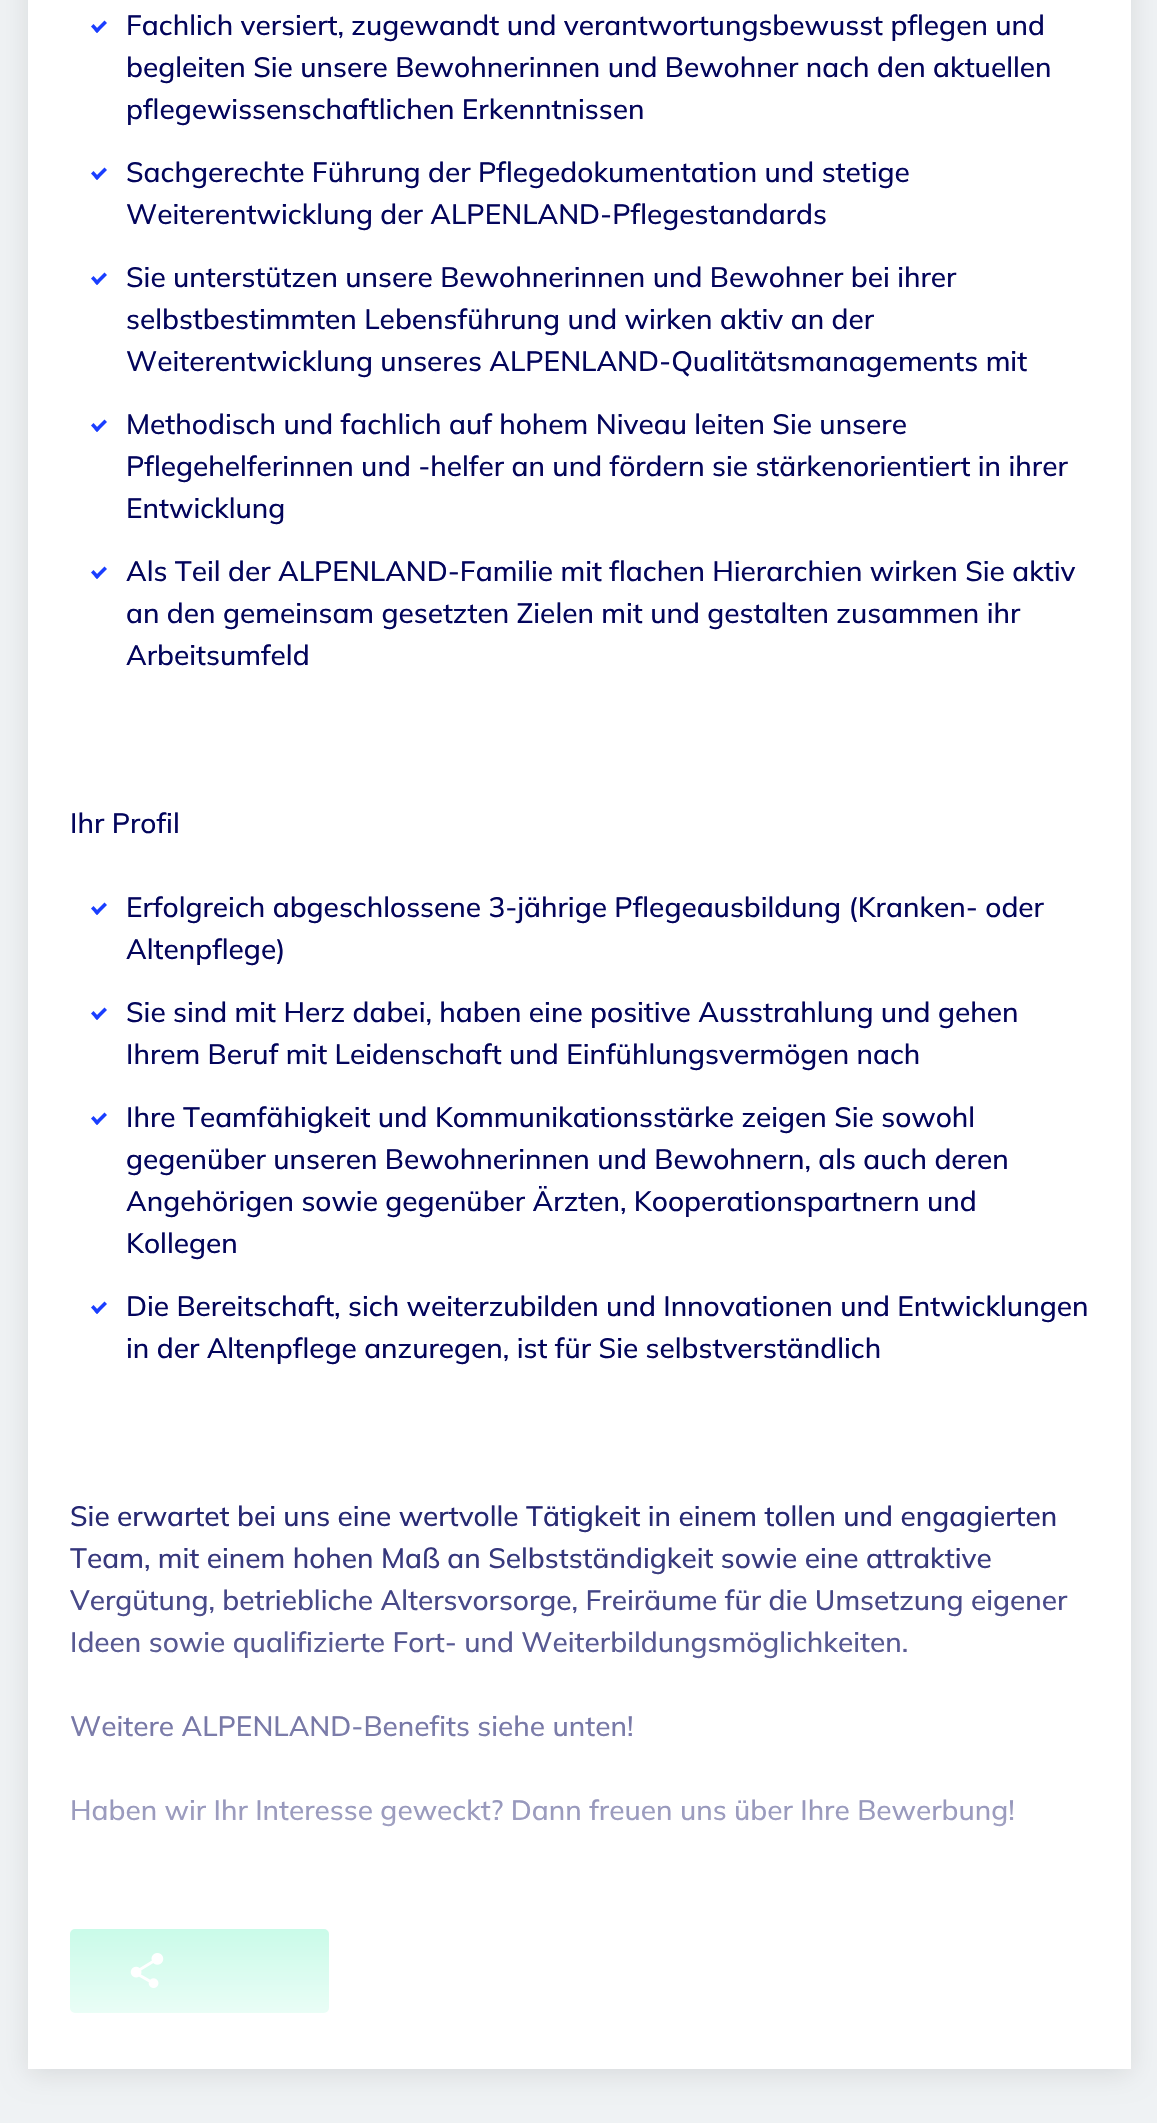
void draw(SkCanvas* canvas) {
  SkPaint paint;
  paint.setAntiAlias(true);
  auto face = [&](const char* family, int weight, float size, bool italic = false) {
    SkFontStyle style(weight, SkFontStyle::kNormal_Width,
      italic ? SkFontStyle::kItalic_Slant : SkFontStyle::kUpright_Slant);
    SkFont result(fontMgr->matchFamilyStyle(family, style), size);
    result.setSubpixel(true);
    return result;
  };
  auto paste = [&](const char* path, float x, float y, float w, float h) {
    auto image = SkImages::DeferredFromEncodedData(SkData::MakeFromFileName(path));
    canvas->drawImageRect(image, SkRect::MakeXYWH(x, y, w, h), SkSamplingOptions());
  };
  auto shape = [&](const char* data, bool evenOdd = false) {
    SkPath result = *SkParsePath::FromSVGString(data);
    if (evenOdd) result.setFillType(SkPathFillType::kEvenOdd);
    return result;
  };
  canvas->clear(0xffeff2f4);
  paint.setColor(0x1a000000);
  paint.setMaskFilter(SkMaskFilter::MakeBlur(kNormal_SkBlurStyle, 13));
  canvas->drawRoundRect(SkRect::MakeXYWH(28, -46, 1103, 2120), 7, 7, paint);
  paint.setMaskFilter(nullptr);
  paint.setColor(0xffffffff);
  canvas->drawRoundRect(SkRect::MakeXYWH(28, -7, 1103, 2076), 7, 7, paint);
  paint.setColor(0xff1a3eff);
  canvas->drawPath(shape("M104.5 20.5L107 23L97 33L94.5 30.5Z"), paint);
  canvas->drawPath(shape("M93.5 24L99.5 30.5L97 33L91 26.5Z"), paint);
  canvas->drawPath(shape("M104.5 167.5L107 170L97 180L94.5 177.5Z"), paint);
  canvas->drawPath(shape("M93.5 171L99.5 177.5L97 180L91 173.5Z"), paint);
  canvas->drawPath(shape("M104.5 272.5L107 275L97 285L94.5 282.5Z"), paint);
  canvas->drawPath(shape("M93.5 276L99.5 282.5L97 285L91 278.5Z"), paint);
  canvas->drawPath(shape("M104.5 419.5L107 422L97 432L94.5 429.5Z"), paint);
  canvas->drawPath(shape("M93.5 423L99.5 429.5L97 432L91 425.5Z"), paint);
  canvas->drawPath(shape("M104.5 566.5L107 569L97 579L94.5 576.5Z"), paint);
  canvas->drawPath(shape("M93.5 570L99.5 576.5L97 579L91 572.5Z"), paint);
  canvas->drawPath(shape("M104.5 902.5L107 905L97 915L94.5 912.5Z"), paint);
  canvas->drawPath(shape("M93.5 906L99.5 912.5L97 915L91 908.5Z"), paint);
  canvas->drawPath(shape("M104.5 1007.5L107 1010L97 1020L94.5 1017.5Z"), paint);
  canvas->drawPath(shape("M93.5 1011L99.5 1017.5L97 1020L91 1013.5Z"), paint);
  canvas->drawPath(shape("M104.5 1112.5L107 1115L97 1125L94.5 1122.5Z"), paint);
  canvas->drawPath(shape("M93.5 1116L99.5 1122.5L97 1125L91 1118.5Z"), paint);
  canvas->drawPath(shape("M104.5 1301.5L107 1304L97 1314L94.5 1311.5Z"), paint);
  canvas->drawPath(shape("M93.5 1305L99.5 1311.5L97 1314L91 1307.5Z"), paint);
  paint.setColor(0xff07e996);
  canvas->drawRoundRect(SkRect::MakeXYWH(72, 1931, 255, 80), 3, 3, paint);
  paint.setStroke(true);
  paint.setStrokeWidth(4);
  canvas->drawRoundRect(SkRect::MakeXYWH(72, 1931, 255, 80), 3, 3, paint);
  paste("img/1.png", 130, 1953, 34, 35);
  auto f0 = face("Mulish", 500, 28);
  paint.setStroke(false);
  paint.setColor(0xff03055c);
  {
    const struct { const char* s; float x, y; } items[] = {
      {"Fachlich versiert, zugewandt und verantwortungsbewusst pflegen und", 126, 35},
      {"begleiten Sie unsere Bewohnerinnen und Bewohner nach den aktuellen", 126, 77},
      {"pflegewissenschaftlichen Erkenntnissen", 126, 119},
      {"Sachgerechte Führung der Pflegedokumentation und stetige", 126, 182},
      {"Weiterentwicklung der ALPENLAND-Pflegestandards", 126, 224},
      {"Sie unterstützen unsere Bewohnerinnen und Bewohner bei ihrer", 126, 287},
      {"selbstbestimmten Lebensführung und wirken aktiv an der", 126, 329},
      {"Weiterentwicklung unseres ALPENLAND-Qualitätsmanagements mit", 126, 371},
      {"Methodisch und fachlich auf hohem Niveau leiten Sie unsere", 126, 434},
      {"Pflegehelferinnen und -helfer an und fördern sie stärkenorientiert in ihrer", 126, 476},
      {"Entwicklung", 126, 518},
      {"Als Teil der ALPENLAND-Familie mit flachen Hierarchien wirken Sie aktiv", 126, 581},
      {"an den gemeinsam gesetzten Zielen mit und gestalten zusammen ihr", 126, 623},
      {"Arbeitsumfeld", 126, 665},
      {"Ihr Profil", 70, 833},
      {"Erfolgreich abgeschlossene 3-jährige Pflegeausbildung (Kranken- oder", 126, 917},
      {"Altenpflege)", 126, 959},
      {"Sie sind mit Herz dabei, haben eine positive Ausstrahlung und gehen", 126, 1022},
      {"Ihrem Beruf mit Leidenschaft und Einfühlungsvermögen nach", 126, 1064},
      {"Ihre Teamfähigkeit und Kommunikationsstärke zeigen Sie sowohl", 126, 1127},
      {"gegenüber unseren Bewohnerinnen und Bewohnern, als auch deren", 126, 1169},
      {"Angehörigen sowie gegenüber Ärzten, Kooperationspartnern und", 126, 1211},
      {"Kollegen", 126, 1253},
      {"Die Bereitschaft, sich weiterzubilden und Innovationen und Entwicklungen", 126, 1316},
      {"in der Altenpflege anzuregen, ist für Sie selbstverständlich", 126, 1358},
      {"Sie erwartet bei uns eine wertvolle Tätigkeit in einem tollen und engagierten", 70, 1526},
      {"Team, mit einem hohen Maß an Selbstständigkeit sowie eine attraktive", 70, 1568},
      {"Vergütung, betriebliche Altersvorsorge, Freiräume für die Umsetzung eigener", 70, 1610},
      {"Ideen sowie qualifizierte Fort- und Weiterbildungsmöglichkeiten.", 70, 1652},
      {"Weitere ALPENLAND-Benefits siehe unten!", 70, 1736},
      {"Haben wir Ihr Interesse geweckt? Dann freuen uns über Ihre Bewerbung!", 70, 1820},
    };
    for (auto [s, x, y] : items) {
      canvas->drawString(s, x, y, f0, paint);
    }
  }
  {
    const SkColor colors[] = {0x00ffffff, 0xffffffff};
    const float stops[] = {0, 1};
    const SkPoint ends[] = {{579, 1428}, {579, 2069}};
    paint.setShader(SkGradientShader::MakeLinear(ends, colors, stops, 2, SkTileMode::kClamp));
    paint.setAlpha(255);
  }
  canvas->drawRect(SkRect::MakeXYWH(28, 1505, 1103, 564), paint);
}
